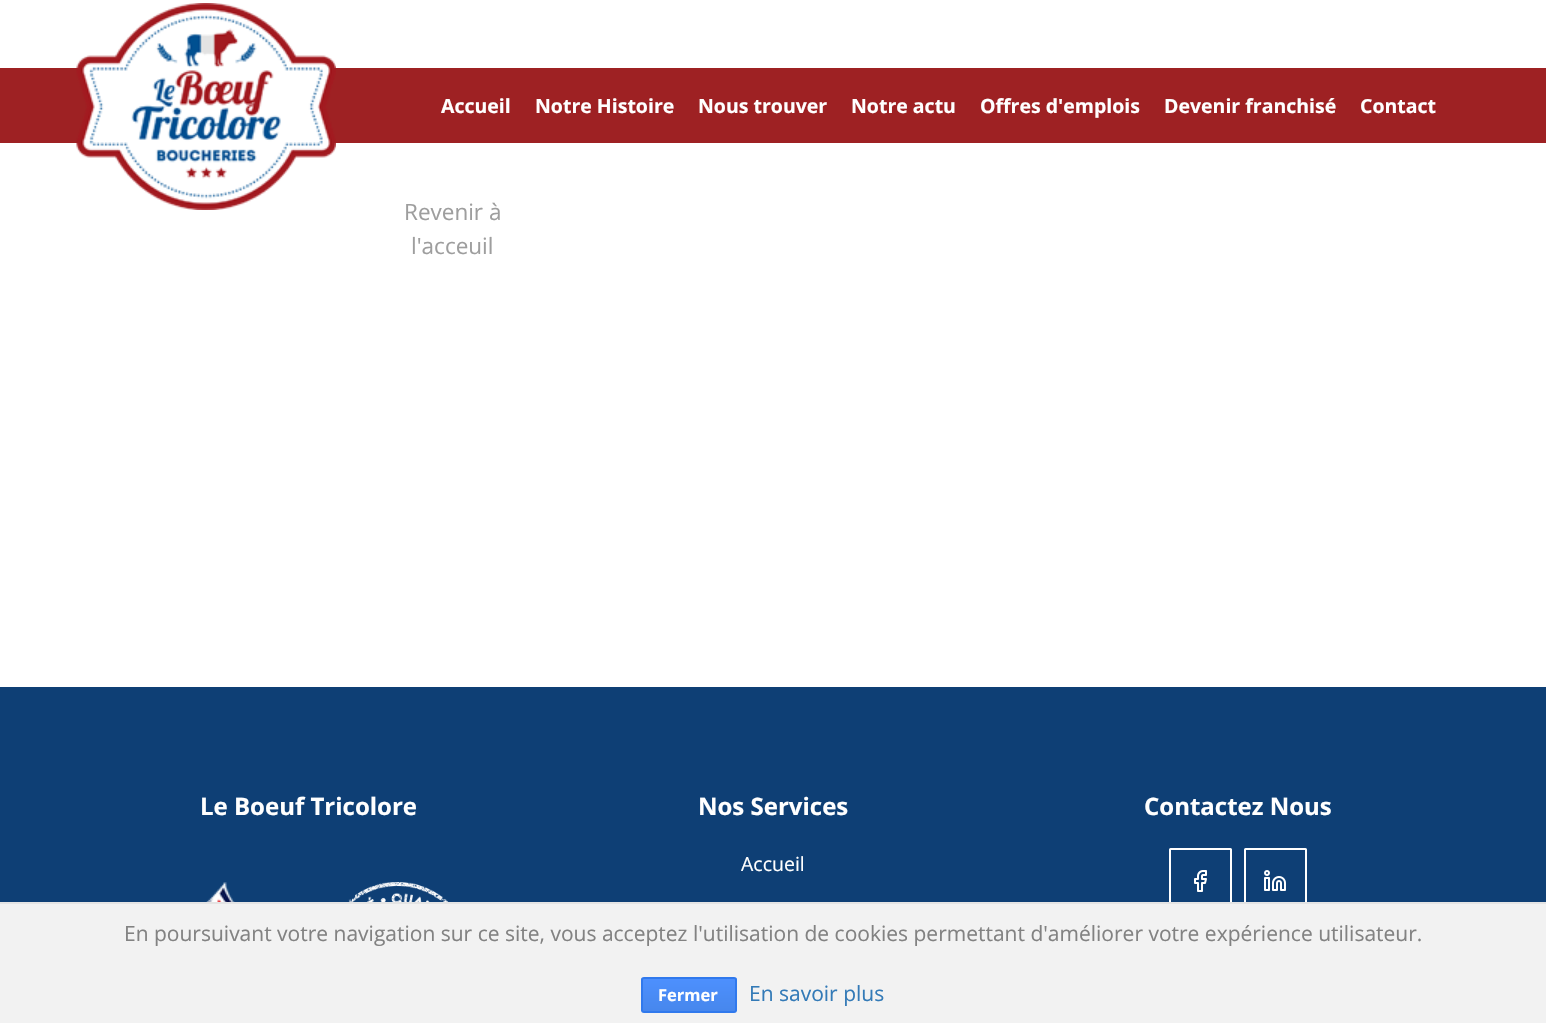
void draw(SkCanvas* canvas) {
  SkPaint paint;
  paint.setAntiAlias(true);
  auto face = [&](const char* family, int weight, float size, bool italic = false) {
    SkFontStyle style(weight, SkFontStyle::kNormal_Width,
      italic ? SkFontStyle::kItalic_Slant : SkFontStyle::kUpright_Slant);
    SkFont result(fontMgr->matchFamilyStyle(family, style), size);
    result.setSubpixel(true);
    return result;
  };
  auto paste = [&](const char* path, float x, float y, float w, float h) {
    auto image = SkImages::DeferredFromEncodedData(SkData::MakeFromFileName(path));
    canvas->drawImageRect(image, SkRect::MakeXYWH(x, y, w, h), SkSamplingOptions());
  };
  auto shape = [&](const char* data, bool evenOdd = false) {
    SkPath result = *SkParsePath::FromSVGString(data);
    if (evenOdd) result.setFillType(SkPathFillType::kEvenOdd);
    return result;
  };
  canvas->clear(0xffffffff);
  paint.setColor(0xff9e2123);
  canvas->drawRect(SkRect::MakeXYWH(0, 68, 1546, 75), paint);
  paste("img/1.png", 76, 3, 260, 207);
  paint.setColor(0xff0e3f75);
  canvas->drawRect(SkRect::MakeXYWH(0, 687, 1546, 215), paint);
  paste("img/2.png", 206, 882, 29, 20);
  paste("img/3.png", 348, 882, 101, 20);
  paint.setStroke(true);
  paint.setStrokeWidth(2);
  paint.setColor(0xffffffff);
  canvas->drawRoundRect(SkRect::MakeXYWH(1170, 849, 61, 61), 0.5f, 0.5f, paint);
  paste("img/4.png", 1194, 870, 13, 22);
  canvas->drawRoundRect(SkRect::MakeXYWH(1245, 849, 61, 61), 0.5f, 0.5f, paint);
  paste("img/5.png", 1264, 870, 22, 21);
  paint.setStroke(false);
  paint.setColor(0xfff2f2f2);
  canvas->drawRect(SkRect::MakeXYWH(0, 904, 1546, 119), paint);
  paint.setColor(0xffe4e4e4);
  canvas->drawRect(SkRect::MakeXYWH(0, 902, 1546, 2), paint);
  canvas->save();
  canvas->clipPath(shape("M644 977H734C735.5 977 737 978.5 737 980V1010C737 1011.5 735.5 1013 734 1013H644C642.5 1013 641 1011.5 641 1010V980C641 978.5 642.5 977 644 977Z"), true);
  {
    const SkColor colors[] = {0xff4d90fe, 0xff4787ed};
    const float stops[] = {0, 1};
    const SkPoint ends[] = {{689, 978}, {689, 1011}};
    paint.setShader(SkGradientShader::MakeLinear(ends, colors, stops, 2, SkTileMode::kClamp));
    paint.setAlpha(255);
  }
  canvas->drawRect(SkRect::MakeXYWH(641, 978, 96, 33), paint);
  canvas->restore();
  paint.setStroke(true);
  paint.setShader(nullptr);
  paint.setColor(0xff3079ed);
  canvas->drawRoundRect(SkRect::MakeXYWH(642, 978, 94, 34), 2, 2, paint);
  auto f0 = face("Open Sans", 700, 19.5f);
  paint.setStroke(false);
  paint.setColor(0xffffffff);
  {
    const struct { const char* s; float x, y; } items[] = {
      {"Accueil", 441, 113},
      {"Notre Histoire", 535, 113},
      {"Nous trouver", 698, 113},
      {"Notre actu", 851, 113},
      {"Offres d'emplois", 980, 113},
      {"Devenir franchisé", 1164, 113},
      {"Contact", 1360, 113},
    };
    for (auto [s, x, y] : items) {
      canvas->drawString(s, x, y, f0, paint);
    }
  }
  auto f1 = face("Open Sans", 400, 22.5f);
  paint.setColor(0xff9e9e9e);
  canvas->drawString("Revenir à", 404, 220, f1, paint);
  canvas->drawString("l'acceuil", 411, 254, f1, paint);
  auto f2 = face("Open Sans", 700, 24);
  paint.setColor(0xffffffff);
  canvas->drawString("Le Boeuf Tricolore", 200, 815, f2, paint);
  canvas->drawString("Nos Services", 698, 815, f2, paint);
  auto f3 = face("Open Sans", 400, 19.5f);
  canvas->drawString("Accueil", 741, 871, f3, paint);
  canvas->drawString("Contactez Nous", 1144, 815, f2, paint);
  auto f4 = face("Open Sans", 400, 21);
  paint.setColor(0xff828282);
  canvas->drawString("En poursuivant votre navigation sur ce site, vous acceptez l'utilisation de cookies permettant d'améliorer votre expérience utilisateur.", 124, 941, f4, paint);
  auto f5 = face("Open Sans", 700, 16.5f);
  paint.setColor(0xffffffff);
  canvas->drawString("Fermer", 658, 1001, f5, paint);
  paint.setColor(0xff337ab7);
  canvas->drawString("En savoir plus", 749, 1001, f4, paint);
}
